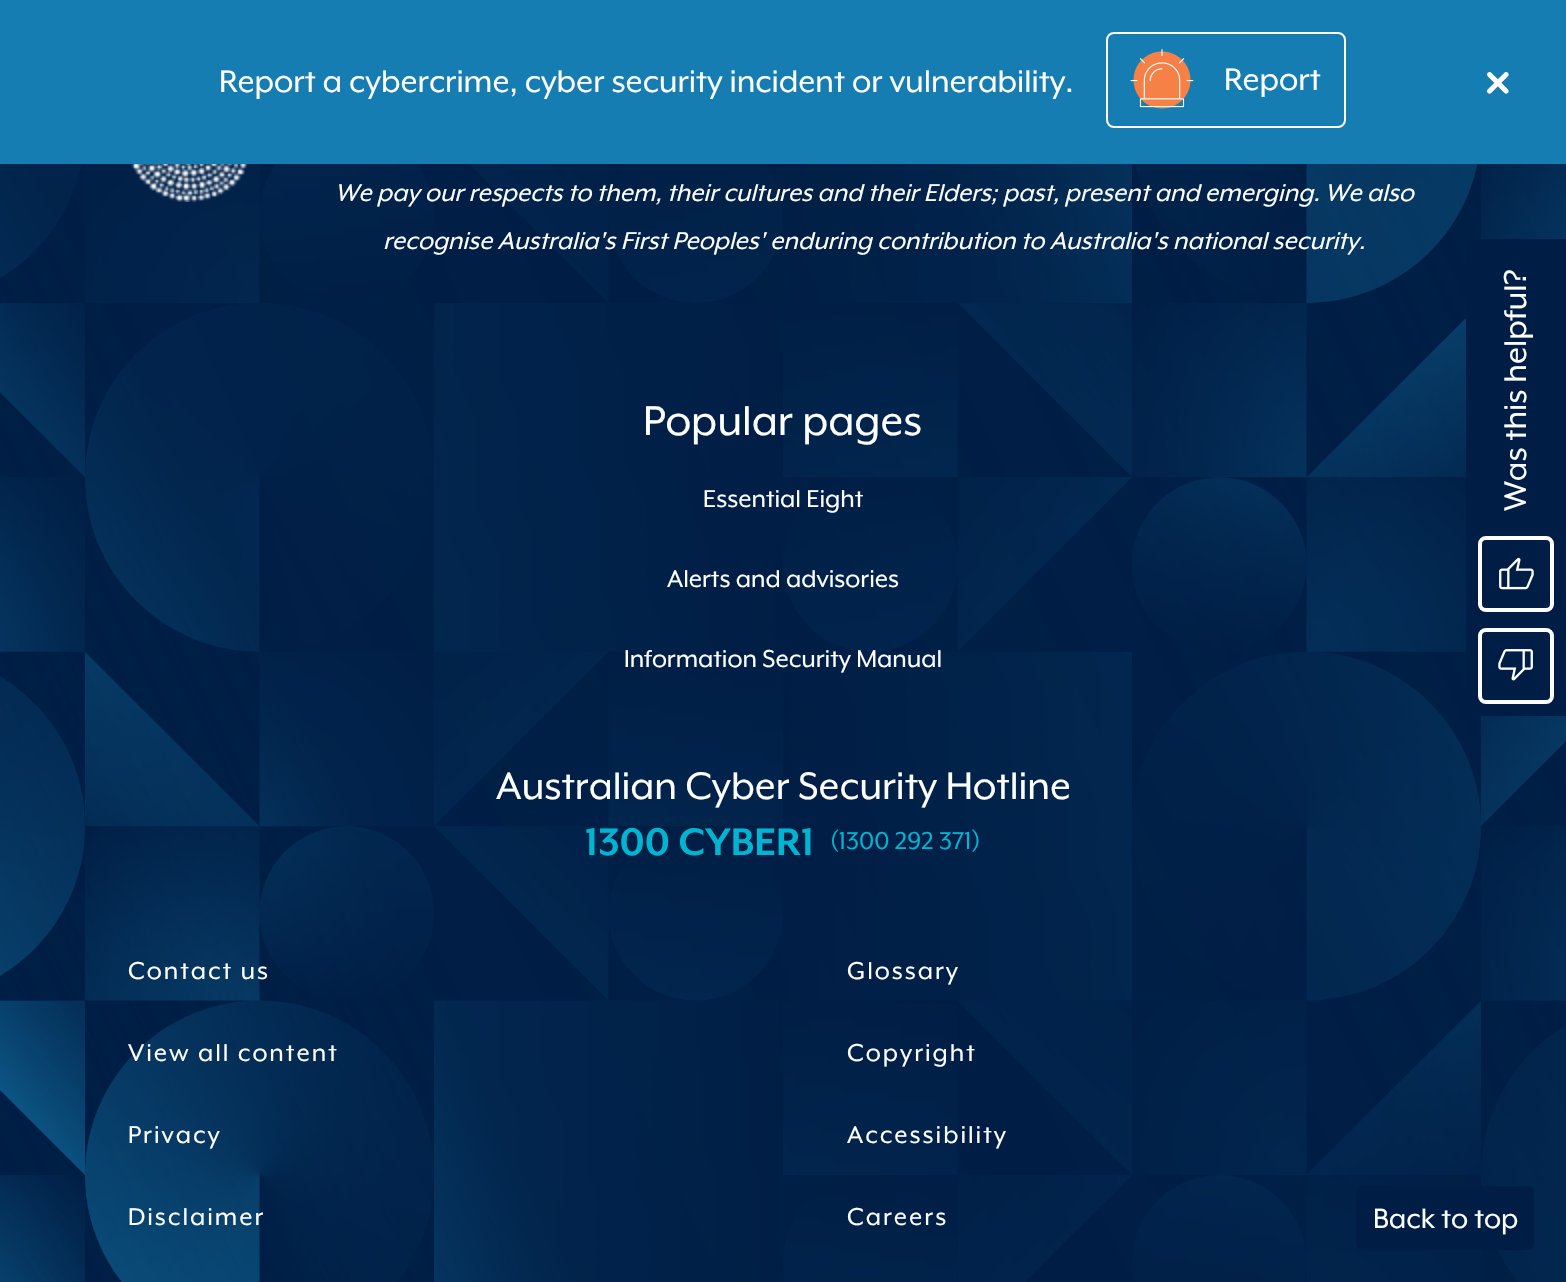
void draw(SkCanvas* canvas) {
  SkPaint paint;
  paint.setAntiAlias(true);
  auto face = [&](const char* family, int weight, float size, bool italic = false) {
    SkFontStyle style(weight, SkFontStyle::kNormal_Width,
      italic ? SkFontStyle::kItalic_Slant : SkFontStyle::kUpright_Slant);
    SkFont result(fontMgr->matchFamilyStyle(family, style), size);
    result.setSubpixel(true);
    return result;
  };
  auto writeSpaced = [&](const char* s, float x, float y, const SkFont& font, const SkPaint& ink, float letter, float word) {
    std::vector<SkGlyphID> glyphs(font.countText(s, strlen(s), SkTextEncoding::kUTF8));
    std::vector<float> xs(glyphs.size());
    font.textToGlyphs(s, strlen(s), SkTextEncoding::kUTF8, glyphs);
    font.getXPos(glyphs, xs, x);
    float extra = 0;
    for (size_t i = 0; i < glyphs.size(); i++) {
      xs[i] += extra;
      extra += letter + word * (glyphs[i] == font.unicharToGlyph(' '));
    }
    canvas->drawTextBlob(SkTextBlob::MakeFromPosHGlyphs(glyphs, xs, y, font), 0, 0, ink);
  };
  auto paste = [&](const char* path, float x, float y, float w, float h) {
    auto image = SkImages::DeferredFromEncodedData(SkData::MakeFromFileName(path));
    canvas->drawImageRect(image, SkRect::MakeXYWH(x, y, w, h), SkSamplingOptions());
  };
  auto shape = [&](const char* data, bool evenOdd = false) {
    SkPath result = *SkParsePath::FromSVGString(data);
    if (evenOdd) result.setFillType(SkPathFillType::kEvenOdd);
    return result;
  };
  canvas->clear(0xff001e45);
  paint.setColor(0xff157db2);
  canvas->drawRect(SkRect::MakeXYWH(0, 0, 1566, 164), paint);
  paint.setStroke(true);
  paint.setStrokeWidth(2);
  paint.setColor(0xffffffff);
  canvas->drawRoundRect(SkRect::MakeXYWH(1107, 33, 238, 94), 7, 7, paint);
  paste("img/1.png", 1130, 49, 64, 60);
  paste("img/2.png", 1487, 72, 22, 22);
  paste("img/3.png", 0, 164, 1566, 1118);
  paint.setStroke(false);
  {
    const SkColor colors[] = {0x00001e45, 0xe6001e45, 0xf2001e45, 0xe6001e45, 0x69001e45};
    const float stops[] = {0, 0.33f, 0.51f, 0.65f, 1};
    const SkPoint ends[] = {{159, 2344}, {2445, 1239}};
    paint.setShader(SkGradientShader::MakeLinear(ends, colors, stops, 5, SkTileMode::kClamp));
    paint.setAlpha(255);
  }
  canvas->drawRect(SkRect::MakeXYWH(0, 164, 1566, 1118), paint);
  paste("img/4.png", 131, 164, 117, 38);
  paint.setShader(nullptr);
  paint.setColor(0xff001e45);
  canvas->drawPath(shape("M1566 239V716H1476C1470 716 1466 711 1466 706V249C1466 243 1470 239 1476 239Z"), paint);
  paint.setStroke(true);
  paint.setStrokeWidth(4);
  paint.setColor(0xffffffff);
  canvas->drawRoundRect(SkRect::MakeXYWH(1480, 538, 72, 72), 6, 6, paint);
  paste("img/5.png", 1499, 557, 35, 33);
  canvas->drawRoundRect(SkRect::MakeXYWH(1480, 630, 72, 72), 6, 6, paint);
  paste("img/6.png", 1498, 649, 35, 32);
  paint.setStroke(false);
  paint.setColor(0xff001e45);
  canvas->drawRoundRect(SkRect::MakeXYWH(1356, 1186, 178, 64), 6, 6, paint);
  auto f0 = face("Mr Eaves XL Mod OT", 400, 36);
  paint.setColor(0xffffffff);
  canvas->drawString("Report a cybercrime, cyber security incident or vulnerability.", 219, 92, f0, paint);
  canvas->drawString("Report", 1224, 90, f0, paint);
  auto f1 = face("Mr Eaves XL Mod OT", 400, 28, true);
  canvas->drawString("We pay our respects to them, their cultures and their Elders; past, present and emerging. We also", 335, 201, f1, paint);
  canvas->drawString("recognise Australia's First Peoples' enduring contribution to Australia's national security.", 383, 249, f1, paint);
  auto f2 = face("Mr Eaves XL Mod OT", 400, 48);
  canvas->drawString("Popular pages", 643, 435, f2, paint);
  auto f3 = face("Mr Eaves XL Mod OT", 400, 28);
  {
    const struct { const char* s; float x, y; } items[] = {
      {"Essential Eight", 703, 507},
      {"Alerts and advisories", 667, 587},
      {"Information Security Manual", 624, 667},
    };
    for (auto [s, x, y] : items) {
      canvas->drawString(s, x, y, f3, paint);
    }
  }
  auto f4 = face("Mr Eaves XL Mod OT", 400, 44);
  canvas->drawString("Australian Cyber Security Hotline", 496, 799, f4, paint);
  auto f5 = face("Mr Eaves XL Mod OT", 700, 44);
  paint.setColor(0xff00b5d1);
  canvas->drawString("1300 CYBER1", 585, 855, f5, paint);
  canvas->drawString("(1300 292 371)", 830, 849, f3, paint);
  paint.setColor(0xffffffff);
  {
    const struct { const char* s; float x, y; } items[] = {
      {"Contact us", 128, 979},
      {"Glossary", 847, 979},
      {"View all content", 128, 1061},
      {"Copyright", 847, 1061},
      {"Privacy", 128, 1143},
      {"Accessibility", 847, 1143},
      {"Disclaimer", 128, 1225},
      {"Careers", 847, 1225},
    };
    for (auto [s, x, y] : items) {
      writeSpaced(s, x, y, f3, paint, 2, 0);
    }
  }
  canvas->save();
  canvas->rotate(-90, 1526, 511);
  canvas->drawString("Was this helpful?", 1526, 511, f0, paint);
  canvas->restore();
  auto f6 = face("Mr Eaves XL Mod OT", 400, 32);
  canvas->drawString("Back to top", 1373, 1228, f6, paint);
}
